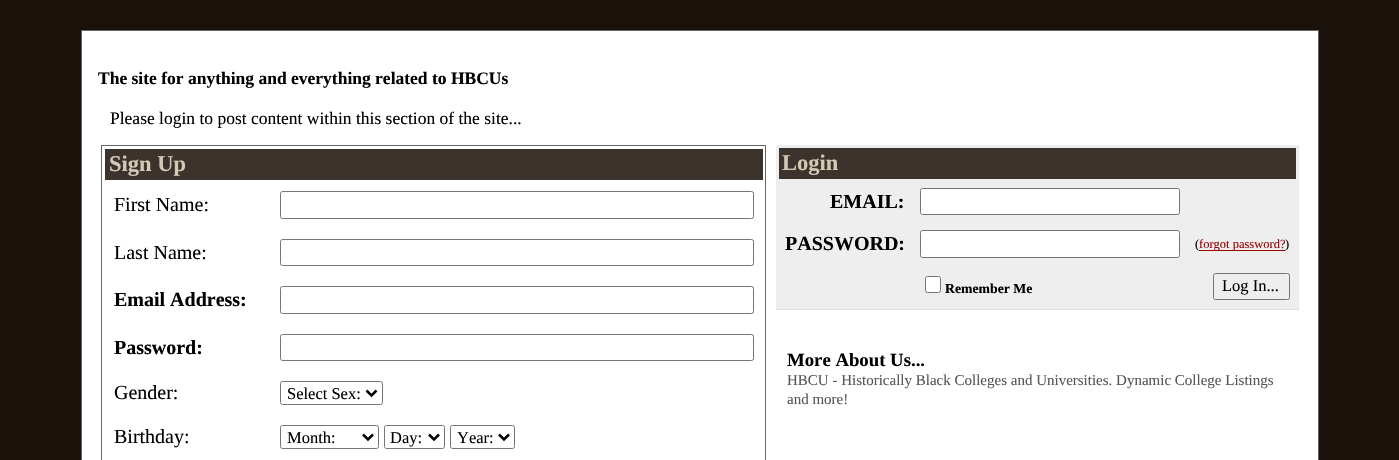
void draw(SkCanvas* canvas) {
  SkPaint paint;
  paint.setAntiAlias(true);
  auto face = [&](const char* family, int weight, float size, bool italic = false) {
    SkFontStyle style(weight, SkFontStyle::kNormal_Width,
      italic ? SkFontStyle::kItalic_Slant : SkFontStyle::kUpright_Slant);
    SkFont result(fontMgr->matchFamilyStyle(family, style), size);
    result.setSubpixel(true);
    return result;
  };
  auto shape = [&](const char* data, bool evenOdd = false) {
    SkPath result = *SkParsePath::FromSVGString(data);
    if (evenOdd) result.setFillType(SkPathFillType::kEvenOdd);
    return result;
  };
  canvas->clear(0xff19110a);
  paint.setColor(0xffffffff);
  canvas->drawRect(SkRect::MakeXYWH(81.5f, 30.5f, 1237, 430), paint);
  paint.setStroke(true);
  paint.setStrokeWidth(1);
  paint.setColor(0xff666666);
  canvas->drawRect(SkRect::MakeXYWH(81.5f, 30.5f, 1237, 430), paint);
  canvas->drawRect(SkRect::MakeXYWH(101.5f, 145.5f, 664, 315), paint);
  paint.setStroke(false);
  paint.setColor(0xff3b332c);
  canvas->drawRect(SkRect::MakeXYWH(105, 149, 658, 31), paint);
  paint.setStroke(true);
  paint.setColor(0xff767676);
  canvas->drawRoundRect(SkRect::MakeXYWH(280.5f, 191.5f, 473, 27), 2, 2, paint);
  canvas->drawRoundRect(SkRect::MakeXYWH(280.5f, 239.5f, 473, 26), 2, 2, paint);
  canvas->drawRoundRect(SkRect::MakeXYWH(280.5f, 286.5f, 473, 27), 2, 2, paint);
  canvas->drawRoundRect(SkRect::MakeXYWH(280.5f, 334.5f, 473, 26), 2, 2, paint);
  canvas->drawRoundRect(SkRect::MakeXYWH(280.5f, 381.5f, 102, 23), 2, 2, paint);
  paint.setStrokeWidth(2.5f);
  paint.setColor(0xff000000);
  canvas->drawPath(shape("M366.5 390.5L371.5 395.5L376.5 390.5"), paint);
  paint.setStrokeWidth(1);
  paint.setColor(0xff767676);
  canvas->drawRoundRect(SkRect::MakeXYWH(280.5f, 425.5f, 98, 23), 2, 2, paint);
  paint.setStrokeWidth(2.5f);
  paint.setColor(0xff000000);
  canvas->drawPath(shape("M363 434.5L368 439.5L373 434.5"), paint);
  paint.setStrokeWidth(1);
  paint.setColor(0xff767676);
  canvas->drawRoundRect(SkRect::MakeXYWH(384.5f, 425.5f, 60, 23), 2, 2, paint);
  paint.setStrokeWidth(2.5f);
  paint.setColor(0xff000000);
  canvas->drawPath(shape("M429 434.5L434 439.5L439 434.5"), paint);
  paint.setStrokeWidth(1);
  paint.setColor(0xff767676);
  canvas->drawRoundRect(SkRect::MakeXYWH(450.5f, 425.5f, 64, 23), 2, 2, paint);
  paint.setStrokeWidth(2.5f);
  paint.setColor(0xff000000);
  canvas->drawPath(shape("M499 434.5L504 439.5L509 434.5"), paint);
  paint.setStroke(false);
  {
    const struct { float x, y, w, h; SkColor color; } items[] = {
      {776, 145, 523, 164, 0xffeeeeee},
      {776, 309, 523, 1, 0xffdddddd},
      {779, 148, 517, 31, 0xff3b332c},
    };
    for (auto [x, y, w, h, color] : items) {
      paint.setColor(color);
      canvas->drawRect(SkRect::MakeXYWH(x, y, w, h), paint);
    }
  }
  paint.setColor(0xffffffff);
  canvas->drawRoundRect(SkRect::MakeXYWH(920.5f, 188.5f, 259, 26), 2, 2, paint);
  paint.setStroke(true);
  paint.setStrokeWidth(1);
  paint.setColor(0xff767676);
  canvas->drawRoundRect(SkRect::MakeXYWH(920.5f, 188.5f, 259, 26), 2, 2, paint);
  paint.setStroke(false);
  paint.setColor(0xffffffff);
  canvas->drawRoundRect(SkRect::MakeXYWH(920.5f, 230.5f, 259, 27), 2, 2, paint);
  paint.setStroke(true);
  paint.setColor(0xff767676);
  canvas->drawRoundRect(SkRect::MakeXYWH(920.5f, 230.5f, 259, 27), 2, 2, paint);
  paint.setStroke(false);
  paint.setColor(0xff990000);
  canvas->drawRect(SkRect::MakeXYWH(1199, 250, 86, 1), paint);
  paint.setColor(0xffffffff);
  canvas->drawRoundRect(SkRect::MakeXYWH(925.5f, 276.5f, 15, 16), 2, 2, paint);
  paint.setStroke(true);
  paint.setColor(0xff767676);
  canvas->drawRoundRect(SkRect::MakeXYWH(925.5f, 276.5f, 15, 16), 2, 2, paint);
  canvas->drawRoundRect(SkRect::MakeXYWH(1213.5f, 273.5f, 76, 26), 2, 2, paint);
  auto f0 = face("Liberation Serif", 700, 17.5f);
  paint.setStroke(false);
  paint.setColor(0xff000000);
  canvas->drawString("The site for anything and everything related to HBCUs", 98, 84, f0, paint);
  auto f1 = face("Liberation Serif", 400, 17.5f);
  canvas->drawString("Please login to post content within this section of the site...", 110, 124, f1, paint);
  auto f2 = face("Liberation Serif", 700, 22.5f);
  paint.setColor(0xffd3cab6);
  canvas->drawString("Sign Up", 109, 171, f2, paint);
  auto f3 = face("Liberation Serif", 400, 20);
  paint.setColor(0xff000000);
  canvas->drawString("First Name:", 114, 211, f3, paint);
  canvas->drawString("Last Name:", 114, 259, f3, paint);
  auto f4 = face("Liberation Serif", 700, 20);
  canvas->drawString("Email Address:", 114, 306, f4, paint);
  canvas->drawString("Password:", 114, 354, f4, paint);
  canvas->drawString("Gender:", 114, 399, f3, paint);
  auto f5 = face("Liberation Serif", 400, 16.5f);
  canvas->drawString("Select Sex:", 287, 399, f5, paint);
  canvas->drawString("Birthday:", 114, 443, f3, paint);
  {
    const struct { const char* s; float x, y; } items[] = {
      {"Month:", 287, 443},
      {"Day:", 390, 443},
      {"Year:", 457, 443},
    };
    for (auto [s, x, y] : items) {
      canvas->drawString(s, x, y, f5, paint);
    }
  }
  paint.setColor(0xffd3cab6);
  canvas->drawString("Login", 782, 170, f2, paint);
  paint.setColor(0xff000000);
  canvas->drawString("EMAIL:", 830, 208, f4, paint);
  canvas->drawString("PASSWORD:", 785, 250, f4, paint);
  auto f6 = face("Liberation Serif", 400, 12.5f);
  canvas->drawString("(", 1195, 248, f6, paint);
  paint.setColor(0xff990000);
  canvas->drawString("forgot password?", 1199, 248, f6, paint);
  paint.setColor(0xff000000);
  canvas->drawString(")", 1285, 248, f6, paint);
  auto f7 = face("Liberation Serif", 700, 13.75f);
  canvas->drawString("Remember Me", 945, 293, f7, paint);
  canvas->drawString("Log In...", 1222, 291, f5, paint);
  auto f8 = face("Liberation Serif", 700, 18.75f);
  canvas->drawString("More About Us...", 787, 366, f8, paint);
  auto f9 = face("Liberation Serif", 400, 15);
  paint.setColor(0xff555555);
  canvas->drawString("HBCU - Historically Black Colleges and Universities. Dynamic College Listings", 787, 385, f9, paint);
  canvas->drawString("and more!", 787, 404, f9, paint);
}
